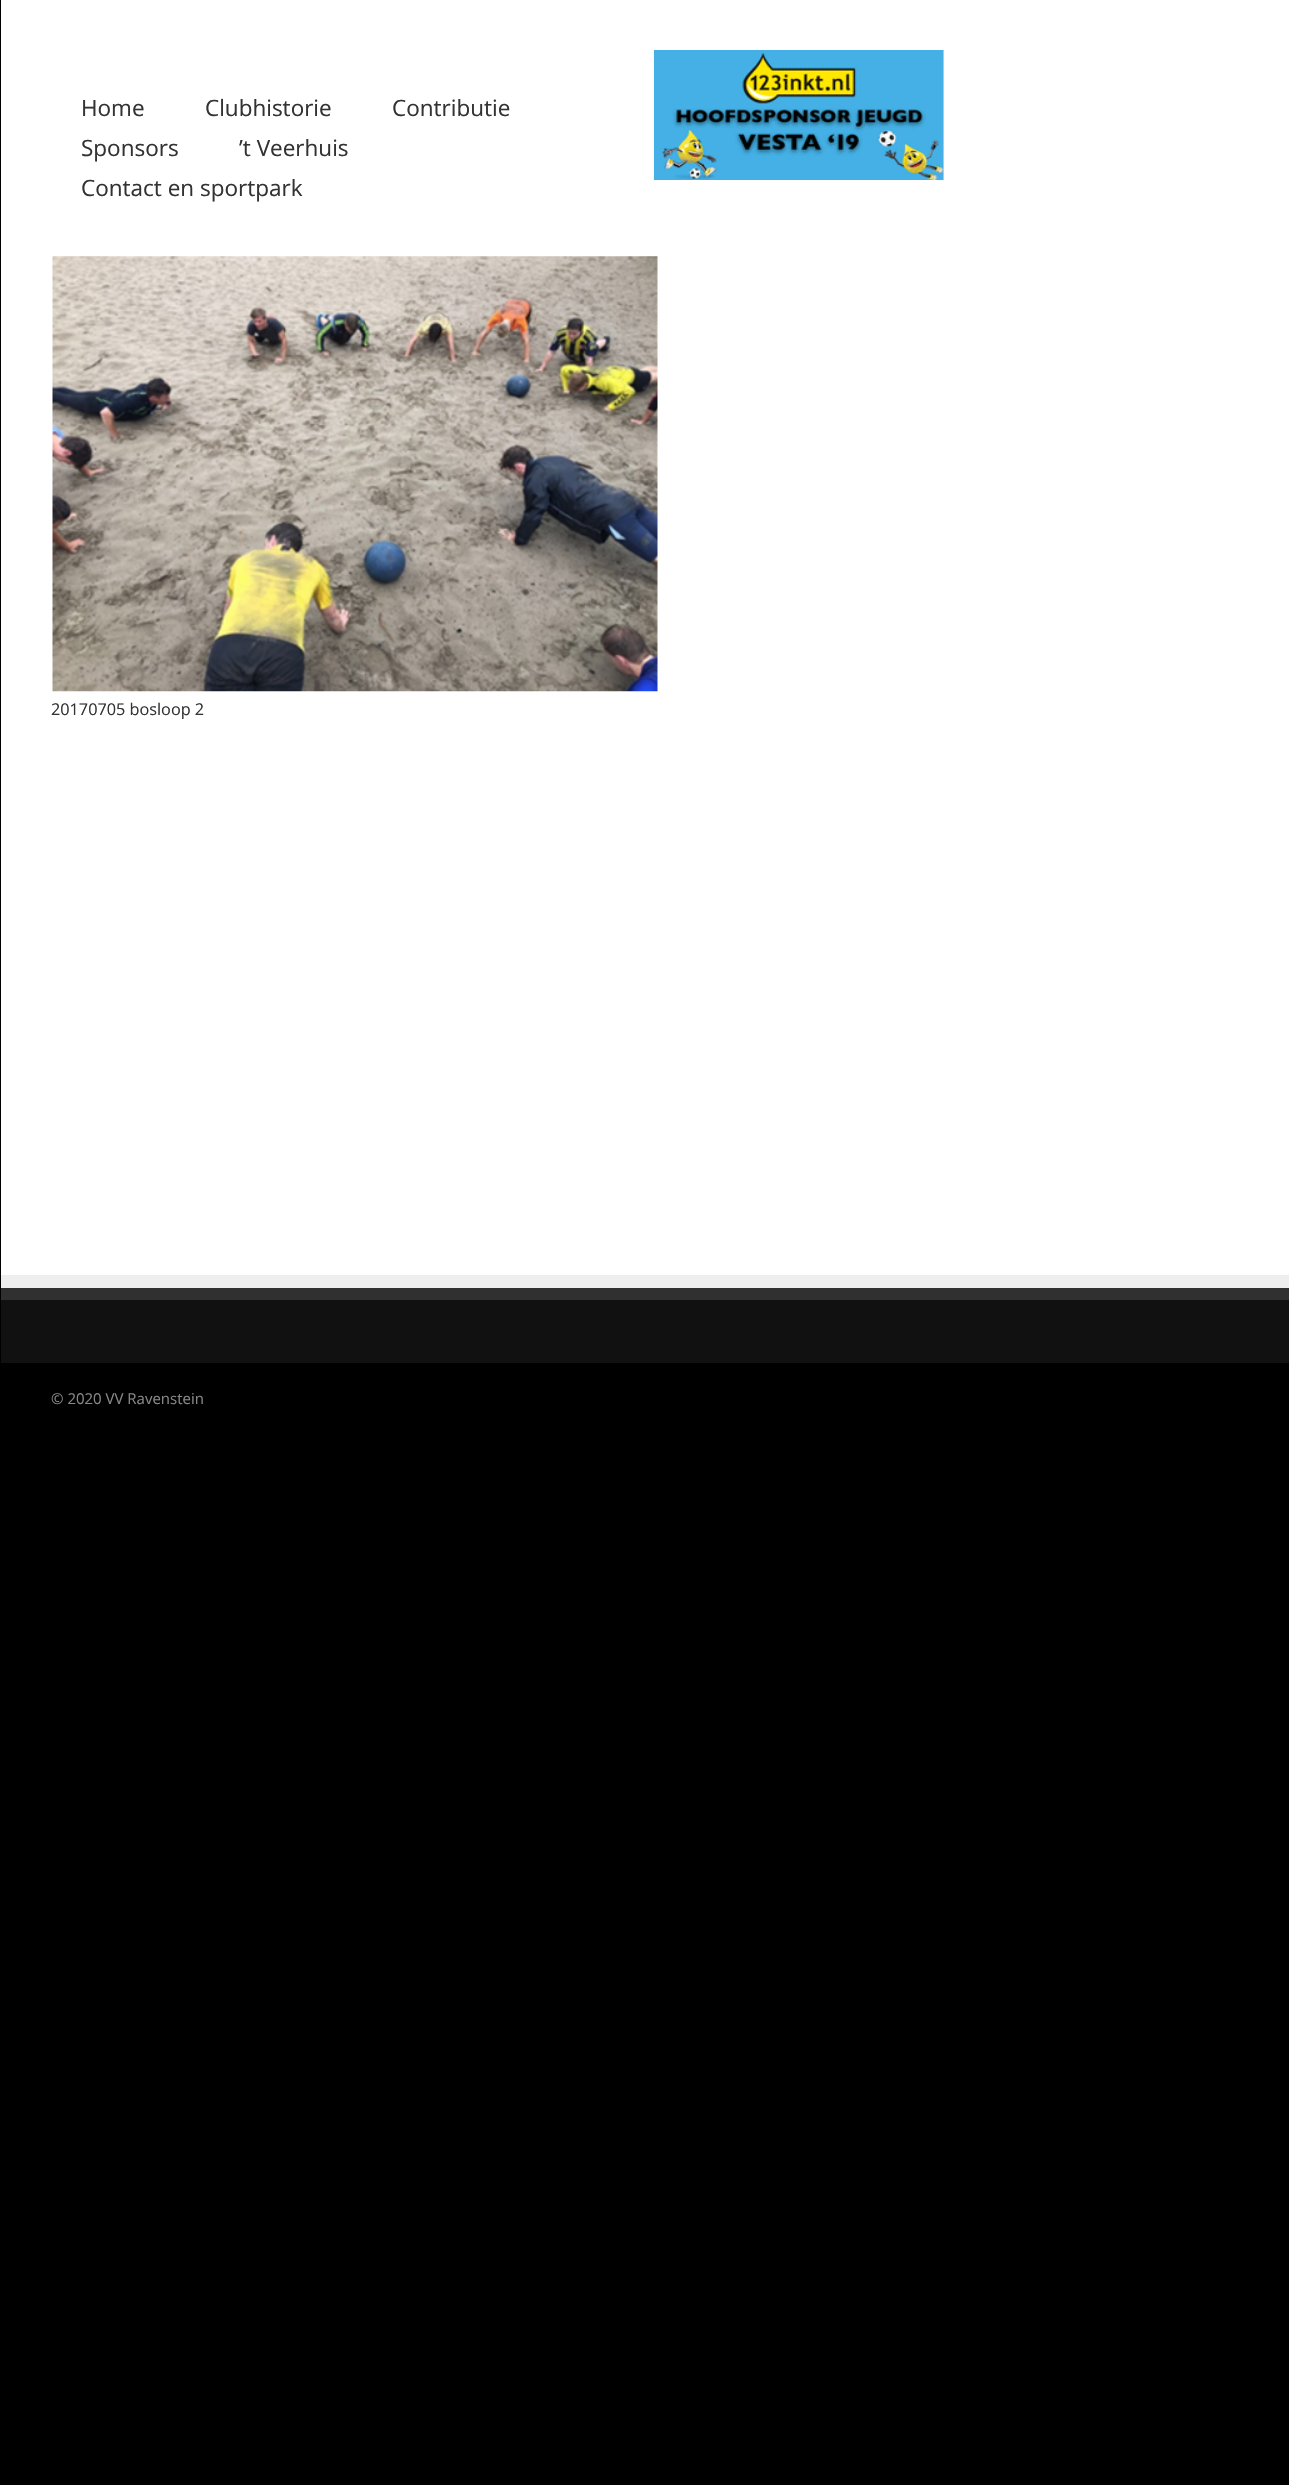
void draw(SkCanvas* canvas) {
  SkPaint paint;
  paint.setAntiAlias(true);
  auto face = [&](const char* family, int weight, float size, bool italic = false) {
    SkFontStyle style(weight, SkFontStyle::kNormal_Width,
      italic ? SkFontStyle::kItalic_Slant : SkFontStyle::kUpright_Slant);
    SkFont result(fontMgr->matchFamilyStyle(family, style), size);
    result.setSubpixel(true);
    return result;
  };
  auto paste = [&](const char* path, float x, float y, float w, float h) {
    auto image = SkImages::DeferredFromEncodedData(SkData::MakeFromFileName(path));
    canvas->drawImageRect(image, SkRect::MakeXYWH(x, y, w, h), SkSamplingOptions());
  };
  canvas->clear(0xff000000);
  paint.setColor(0xffffffff);
  canvas->drawRect(SkRect::MakeXYWH(1, 0, 1288, 1275), paint);
  paint.setColor(0xffeeeeee);
  canvas->drawRect(SkRect::MakeXYWH(1, 1275, 1288, 13), paint);
  paste("img/1.png", 653, 50, 291, 130);
  paste("img/2.png", 52, 256, 606, 436);
  paint.setColor(0xff111111);
  canvas->drawRect(SkRect::MakeXYWH(1, 1300, 1288, 63), paint);
  paint.setColor(0xff303030);
  canvas->drawRect(SkRect::MakeXYWH(1, 1288, 1288, 12), paint);
  auto f0 = face("Open Sans", 400, 22.5f);
  paint.setColor(0xff333333);
  {
    const struct { const char* s; float x, y; } items[] = {
      {"Home", 81, 116},
      {"Clubhistorie", 205, 116},
      {"Contributie", 392, 116},
      {"Sponsors", 81, 156},
      {"’t Veerhuis", 239, 156},
      {"Contact en sportpark", 81, 196},
    };
    for (auto [s, x, y] : items) {
      canvas->drawString(s, x, y, f0, paint);
    }
  }
  auto f1 = face("Open Sans", 400, 16.25f);
  canvas->drawString("20170705 bosloop 2", 51, 715, f1, paint);
  auto f2 = face("Open Sans", 400, 15);
  paint.setColor(0xff888888);
  canvas->drawString("© 2020 VV Ravenstein", 51, 1404, f2, paint);
}
